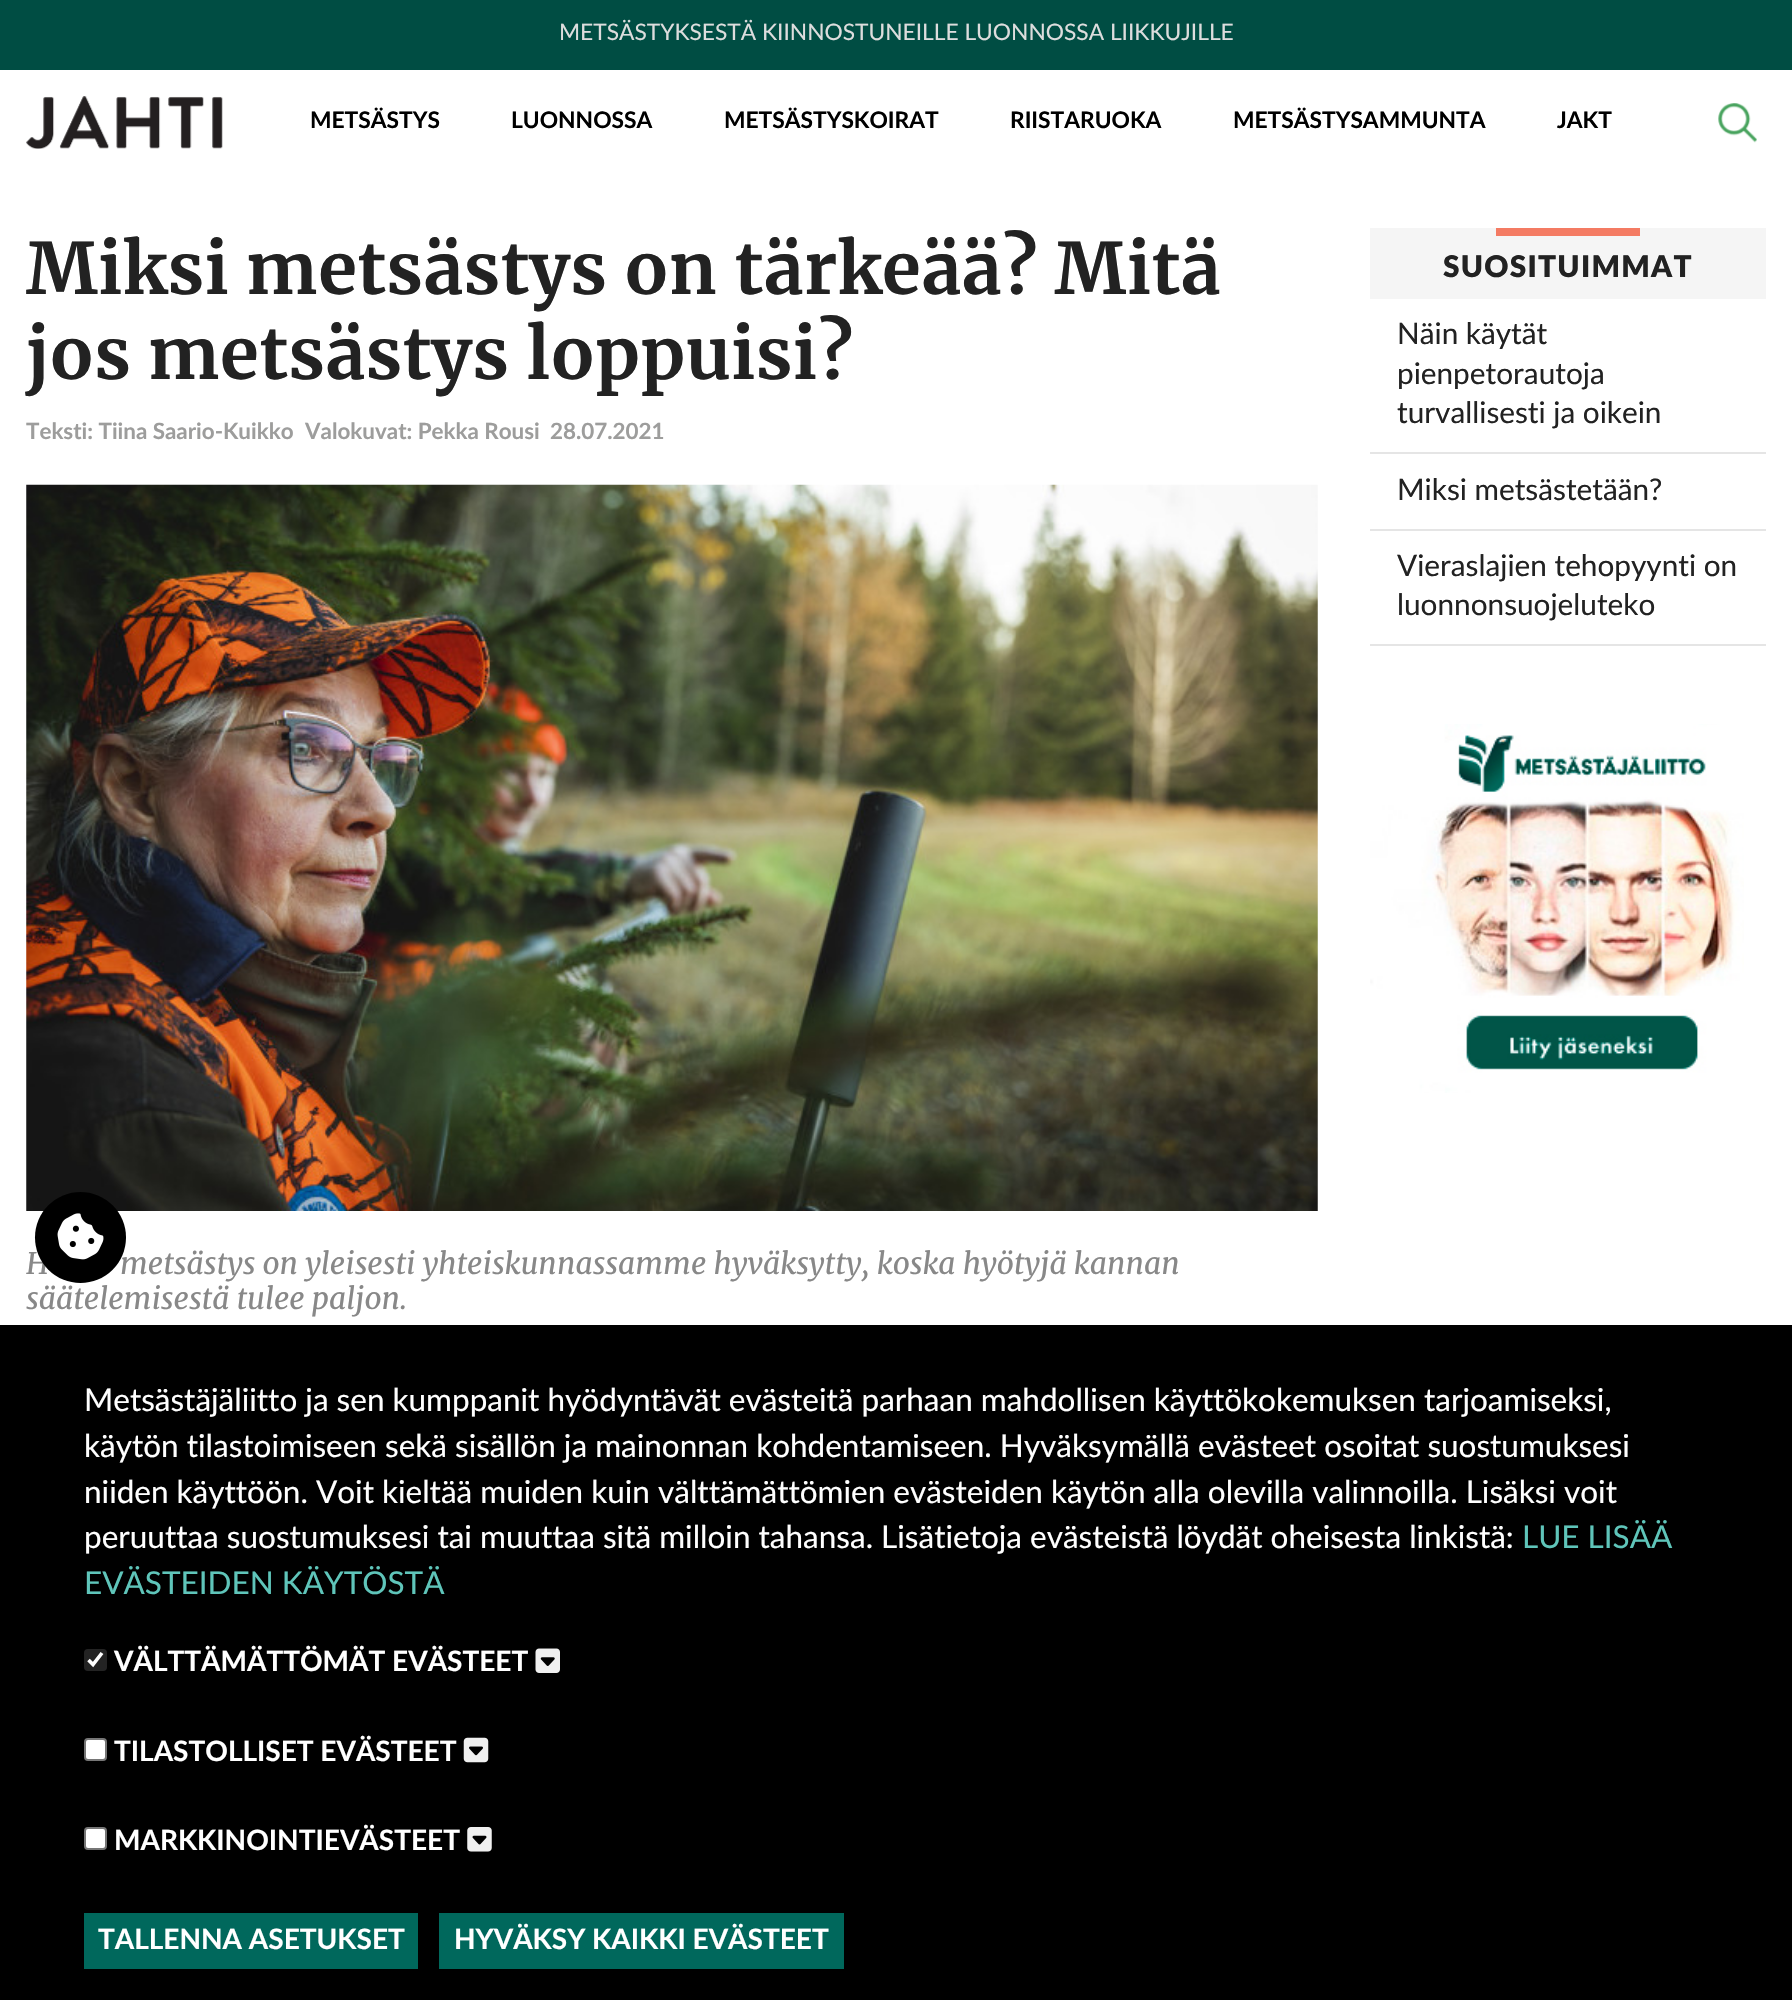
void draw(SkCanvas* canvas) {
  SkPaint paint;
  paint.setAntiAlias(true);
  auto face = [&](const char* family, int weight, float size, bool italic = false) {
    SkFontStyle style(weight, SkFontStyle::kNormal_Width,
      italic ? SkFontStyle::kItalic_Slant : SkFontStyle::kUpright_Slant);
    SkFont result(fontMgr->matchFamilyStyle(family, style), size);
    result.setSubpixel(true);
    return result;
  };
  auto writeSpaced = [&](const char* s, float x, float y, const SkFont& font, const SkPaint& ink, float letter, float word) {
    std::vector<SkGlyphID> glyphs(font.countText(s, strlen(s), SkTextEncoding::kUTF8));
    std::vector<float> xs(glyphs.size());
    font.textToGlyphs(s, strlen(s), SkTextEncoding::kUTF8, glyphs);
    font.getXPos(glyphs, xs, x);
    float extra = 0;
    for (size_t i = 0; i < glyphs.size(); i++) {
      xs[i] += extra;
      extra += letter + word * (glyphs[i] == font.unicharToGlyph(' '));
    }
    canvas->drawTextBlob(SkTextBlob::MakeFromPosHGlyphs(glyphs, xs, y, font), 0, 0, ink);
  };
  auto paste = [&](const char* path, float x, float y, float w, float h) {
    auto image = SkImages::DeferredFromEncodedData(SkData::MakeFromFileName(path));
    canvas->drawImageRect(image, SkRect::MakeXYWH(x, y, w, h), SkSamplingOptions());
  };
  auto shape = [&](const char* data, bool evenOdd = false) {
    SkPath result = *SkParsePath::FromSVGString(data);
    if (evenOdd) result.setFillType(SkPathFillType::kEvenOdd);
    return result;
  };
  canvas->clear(0xffffffff);
  paint.setColor(0xff004d43);
  canvas->drawRect(SkRect::MakeXYWH(0, 0, 1792, 70), paint);
  paste("img/1.png", 26, 96, 197, 53);
  paste("img/2.png", 1718, 103, 39, 40);
  paste("img/3.png", 26, 484, 1292, 727);
  {
    const struct { float x, y, w, h; SkColor color; } items[] = {
      {1370, 228, 396, 71, 0xfff5f5f5},
      {1496, 228, 144, 8, 0xfff47b63},
      {1370, 452, 396, 2, 0xffe5e5e5},
      {1370, 529, 396, 2, 0xffe5e5e5},
      {1370, 644, 396, 2, 0xffe5e5e5},
    };
    for (auto [x, y, w, h, color] : items) {
      paint.setColor(color);
      canvas->drawRect(SkRect::MakeXYWH(x, y, w, h), paint);
    }
  }
  paste("img/4.png", 1370, 724, 374, 369);
  paint.setColor(0xff000000);
  canvas->drawRect(SkRect::MakeXYWH(0, 1325, 1792, 675), paint);
  paint.setColor(0xff232323);
  canvas->drawRoundRect(SkRect::MakeXYWH(84, 1649, 23, 22), 4, 4, paint);
  paint.setStroke(true);
  paint.setStrokeWidth(3.6f);
  paint.setColor(0xffffffff);
  canvas->drawPath(shape("M88.5 1660L93 1664.5L102 1653"), paint);
  paste("img/6.png", 535, 1648, 25, 25);
  paint.setStroke(false);
  canvas->drawRoundRect(SkRect::MakeXYWH(85, 1739, 21, 21), 3, 3, paint);
  paint.setStroke(true);
  paint.setStrokeWidth(2);
  paint.setColor(0xff767676);
  canvas->drawRoundRect(SkRect::MakeXYWH(85, 1739, 21, 21), 3, 3, paint);
  paste("img/7.png", 463, 1737, 26, 26);
  paint.setStroke(false);
  paint.setColor(0xffffffff);
  canvas->drawRoundRect(SkRect::MakeXYWH(85, 1828, 21, 21), 3, 3, paint);
  paint.setStroke(true);
  paint.setColor(0xff767676);
  canvas->drawRoundRect(SkRect::MakeXYWH(85, 1828, 21, 21), 3, 3, paint);
  paste("img/8.png", 467, 1827, 25, 25);
  paint.setStroke(false);
  paint.setColor(0xff00685c);
  canvas->drawRect(SkRect::MakeXYWH(84, 1913, 334, 56), paint);
  canvas->drawRect(SkRect::MakeXYWH(439, 1913, 405, 56), paint);
  auto f0 = face("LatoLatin", 400, 22.75f);
  paint.setColor(0xffdddddd);
  canvas->drawString("METSÄSTYKSESTÄ KIINNOSTUNEILLE LUONNOSSA LIIKKUJILLE", 559, 40, f0, paint);
  auto f1 = face("LatoLatin", 700, 22.75f);
  paint.setColor(0xff000000);
  {
    const struct { const char* s; float x, y; } items[] = {
      {"METSÄSTYS", 310, 128},
      {"LUONNOSSA", 511, 128},
      {"METSÄSTYSKOIRAT", 724, 128},
      {"RIISTARUOKA", 1010, 128},
      {"METSÄSTYSAMMUNTA", 1233, 128},
      {"JAKT", 1557, 128},
    };
    for (auto [s, x, y] : items) {
      canvas->drawString(s, x, y, f1, paint);
    }
  }
  auto f2 = face("Merriweather", 700, 70.5f);
  paint.setColor(0xff222222);
  writeSpaced("Miksi metsästys on tärkeää? Mitä", 26, 294, f2, paint, 0.35f, 0);
  writeSpaced("jos metsästys loppuisi?", 26, 379, f2, paint, 0.35f, 0);
  auto f3 = face("LatoLatin", 700, 22.4f);
  paint.setColor(0xff9d9d9c);
  {
    const struct { const char* s; float x, y; } items[] = {
      {"Teksti: Tiina Saario-Kuikko", 26, 439},
      {"Valokuvat: Pekka Rousi", 305, 439},
      {"28.07.2021", 550, 439},
    };
    for (auto [s, x, y] : items) {
      canvas->drawString(s, x, y, f3, paint);
    }
  }
  auto f4 = face("Merriweather", 400, 29.75f, true);
  paint.setColor(0xff888888);
  {
    const struct { const char* s; float x, y; } items[] = {
      {"H", 26, 1274},
      {"metsästys on yleisesti yhteiskunnassamme hyväksytty, koska hyötyjä kannan", 120, 1274},
      {"säätelemisestä tulee paljon.", 26, 1309},
    };
    for (auto [s, x, y] : items) {
      canvas->drawString(s, x, y, f4, paint);
    }
  }
  auto f5 = face("LatoLatin", 900, 29.75f);
  paint.setColor(0xff222222);
  writeSpaced("SUOSITUIMMAT", 1443, 277, f5, paint, 1.25f, 0);
  auto f6 = face("LatoLatin", 400, 29.75f);
  {
    const struct { const char* s; float x, y; } items[] = {
      {"Näin käytät", 1397, 344},
      {"pienpetorautoja", 1397, 384},
      {"turvallisesti ja oikein", 1397, 423},
      {"Miksi metsästetään?", 1397, 500},
      {"Vieraslajien tehopyynti on", 1397, 576},
      {"luonnonsuojeluteko", 1397, 615},
    };
    for (auto [s, x, y] : items) {
      canvas->drawString(s, x, y, f6, paint);
    }
  }
  paint.setColor(0xff000000);
  canvas->drawCircle(80.5f, 1237.5f, 45.5f, paint);
  paste("img/5.png", 57, 1213, 47, 47);
  auto f7 = face("LatoLatin", 400, 31.5f);
  paint.setColor(0xffffffff);
  {
    const struct { const char* s; float x, y; } items[] = {
      {"Metsästäjäliitto ja sen kumppanit hyödyntävät evästeitä parhaan mahdollisen käyttökokemuksen tarjoamiseksi,", 84, 1411},
      {"käytön tilastoimiseen sekä sisällön ja mainonnan kohdentamiseen. Hyväksymällä evästeet osoitat suostumuksesi", 84, 1457},
      {"niiden käyttöön. Voit kieltää muiden kuin välttämättömien evästeiden käytön alla olevilla valinnoilla. Lisäksi voit", 84, 1503},
      {"peruuttaa suostumuksesi tai muuttaa sitä milloin tahansa. Lisätietoja evästeistä löydät oheisesta linkistä:", 84, 1548},
    };
    for (auto [s, x, y] : items) {
      canvas->drawString(s, x, y, f7, paint);
    }
  }
  paint.setColor(0xff5fc5ba);
  canvas->drawString("LUE LISÄÄ", 1522, 1548, f7, paint);
  canvas->drawString("EVÄSTEIDEN KÄYTÖSTÄ", 84, 1594, f7, paint);
  auto f8 = face("LatoLatin", 700, 28);
  paint.setColor(0xffffffff);
  {
    const struct { const char* s; float x, y; } items[] = {
      {"VÄLTTÄMÄTTÖMÄT EVÄSTEET", 114, 1671},
      {"TILASTOLLISET EVÄSTEET", 114, 1761},
      {"MARKKINOINTIEVÄSTEET", 114, 1850},
      {"TALLENNA ASETUKSET", 98, 1949},
      {"HYVÄKSY KAIKKI EVÄSTEET", 454, 1949},
    };
    for (auto [s, x, y] : items) {
      canvas->drawString(s, x, y, f8, paint);
    }
  }
}
